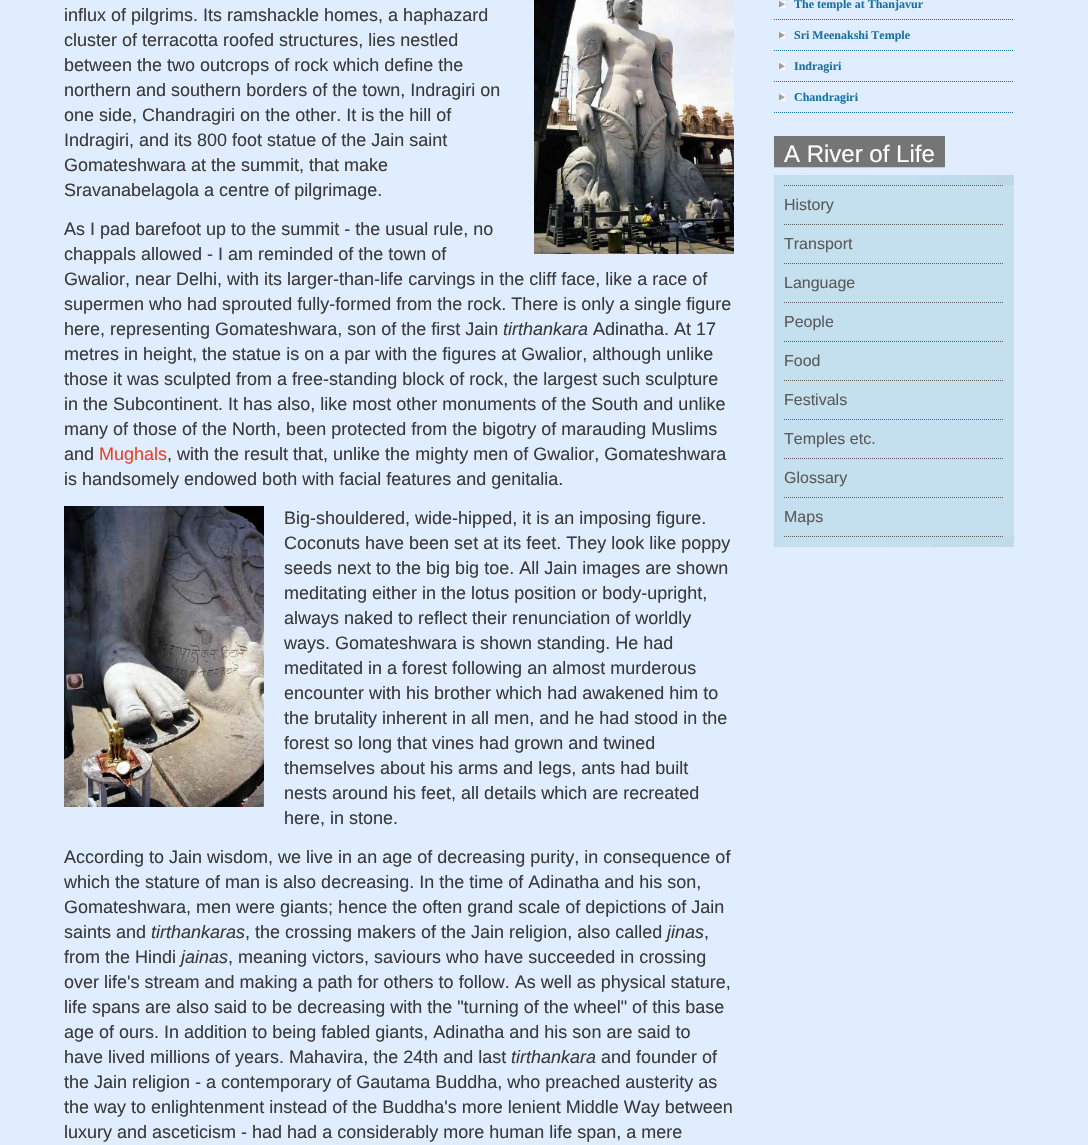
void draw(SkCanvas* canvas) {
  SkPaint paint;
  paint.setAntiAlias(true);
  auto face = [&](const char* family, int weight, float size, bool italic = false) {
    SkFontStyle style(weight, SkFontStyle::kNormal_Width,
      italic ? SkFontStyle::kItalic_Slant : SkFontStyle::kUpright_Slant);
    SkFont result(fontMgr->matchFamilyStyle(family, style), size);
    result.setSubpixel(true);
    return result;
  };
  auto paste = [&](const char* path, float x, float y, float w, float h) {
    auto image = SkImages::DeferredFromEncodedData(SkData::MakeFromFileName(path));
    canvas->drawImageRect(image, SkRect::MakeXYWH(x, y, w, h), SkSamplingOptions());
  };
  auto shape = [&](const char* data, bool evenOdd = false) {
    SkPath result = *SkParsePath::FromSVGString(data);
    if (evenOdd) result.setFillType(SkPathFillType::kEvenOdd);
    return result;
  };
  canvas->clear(0xffe0edff);
  paste("img/1.png", 534, 0, 200, 254);
  paste("img/2.png", 64, 506, 200, 301);
  paste("img/3.png", 779, 1, 6, 7);
  paint.setStroke(true);
  paint.setStrokeWidth(1);
  paint.setColor(0xff1871a2);
  paint.setPathEffect(SkDashPathEffect::Make({{1, 1}}, 0));
  canvas->drawPath(shape("M774 19.5H1014"), paint);
  paint.setPathEffect(nullptr);
  paste("img/3.png", 779, 32, 6, 7);
  paint.setPathEffect(SkDashPathEffect::Make({{1, 1}}, 0));
  canvas->drawPath(shape("M774 50.5H1014"), paint);
  paint.setPathEffect(nullptr);
  paste("img/3.png", 779, 63, 6, 7);
  paint.setPathEffect(SkDashPathEffect::Make({{1, 1}}, 0));
  canvas->drawPath(shape("M774 81.5H1014"), paint);
  paint.setPathEffect(nullptr);
  paste("img/3.png", 779, 94, 6, 7);
  paint.setPathEffect(SkDashPathEffect::Make({{1, 1}}, 0));
  canvas->drawPath(shape("M774 112.5H1014"), paint);
  paint.setPathEffect(nullptr);
  paint.setStroke(false);
  paint.setColor(0xff757575);
  canvas->drawRect(SkRect::MakeXYWH(774, 136, 171, 31), paint);
  paint.setColor(0xffc8c8c8);
  canvas->drawRect(SkRect::MakeXYWH(774, 167, 171, 1), paint);
  paste("img/4.png", 774, 175, 240, 10);
  paint.setColor(0xffc4dfee);
  canvas->drawRect(SkRect::MakeXYWH(774, 185, 240, 352), paint);
  paint.setStroke(true);
  paint.setColor(0xff5a5a5a);
  paint.setPathEffect(SkDashPathEffect::Make({{1, 1}}, 0));
  canvas->drawPath(shape("M784 185.5H1004"), paint);
  paint.setPathEffect(nullptr);
  paint.setPathEffect(SkDashPathEffect::Make({{1, 1}}, 0));
  canvas->drawPath(shape("M784 224.5H1004"), paint);
  paint.setPathEffect(nullptr);
  paint.setPathEffect(SkDashPathEffect::Make({{1, 1}}, 0));
  canvas->drawPath(shape("M784 263.5H1004"), paint);
  paint.setPathEffect(nullptr);
  paint.setPathEffect(SkDashPathEffect::Make({{1, 1}}, 0));
  canvas->drawPath(shape("M784 302.5H1004"), paint);
  paint.setPathEffect(nullptr);
  paint.setPathEffect(SkDashPathEffect::Make({{1, 1}}, 0));
  canvas->drawPath(shape("M784 341.5H1004"), paint);
  paint.setPathEffect(nullptr);
  paint.setPathEffect(SkDashPathEffect::Make({{1, 1}}, 0));
  canvas->drawPath(shape("M784 380.5H1004"), paint);
  paint.setPathEffect(nullptr);
  paint.setPathEffect(SkDashPathEffect::Make({{1, 1}}, 0));
  canvas->drawPath(shape("M784 419.5H1004"), paint);
  paint.setPathEffect(nullptr);
  paint.setPathEffect(SkDashPathEffect::Make({{1, 1}}, 0));
  canvas->drawPath(shape("M784 458.5H1004"), paint);
  paint.setPathEffect(nullptr);
  paint.setPathEffect(SkDashPathEffect::Make({{1, 1}}, 0));
  canvas->drawPath(shape("M784 497.5H1004"), paint);
  paint.setPathEffect(nullptr);
  paint.setPathEffect(SkDashPathEffect::Make({{1, 1}}, 0));
  canvas->drawPath(shape("M784 536.5H1004"), paint);
  paint.setPathEffect(nullptr);
  paste("img/5.png", 774, 537, 240, 10);
  auto f0 = face("Liberation Sans", 400, 18);
  paint.setStroke(false);
  paint.setColor(0xff3a3a3a);
  {
    const struct { const char* s; float x, y; } items[] = {
      {"influx of pilgrims. Its ramshackle homes, a haphazard", 64, 21},
      {"cluster of terracotta roofed structures, lies nestled", 64, 46},
      {"between the two outcrops of rock which define the", 64, 71},
      {"northern and southern borders of the town, Indragiri on", 64, 96},
      {"one side, Chandragiri on the other. It is the hill of", 64, 121},
      {"Indragiri, and its 800 foot statue of the Jain saint", 64, 146},
      {"Gomateshwara at the summit, that make", 64, 171},
      {"Sravanabelagola a centre of pilgrimage.", 64, 196},
      {"As I pad barefoot up to the summit - the usual rule, no", 64, 235},
      {"chappals allowed - I am reminded of the town of", 64, 260},
      {"Gwalior, near Delhi, with its larger-than-life carvings in the cliff face, like a race of", 64, 285},
      {"supermen who had sprouted fully-formed from the rock. There is only a single figure", 64, 310},
      {"here, representing Gomateshwara, son of the first Jain", 64, 335},
    };
    for (auto [s, x, y] : items) {
      canvas->drawString(s, x, y, f0, paint);
    }
  }
  auto f1 = face("Liberation Sans", 400, 18, true);
  canvas->drawString("tirthankara", 503, 335, f1, paint);
  {
    const struct { const char* s; float x, y; } items[] = {
      {"Adinatha. At 17", 593, 335},
      {"metres in height, the statue is on a par with the figures at Gwalior, although unlike", 64, 360},
      {"those it was sculpted from a free-standing block of rock, the largest such sculpture", 64, 385},
      {"in the Subcontinent. It has also, like most other monuments of the South and unlike", 64, 410},
      {"many of those of the North, been protected from the bigotry of marauding Muslims", 64, 435},
      {"and", 64, 460},
    };
    for (auto [s, x, y] : items) {
      canvas->drawString(s, x, y, f0, paint);
    }
  }
  paint.setColor(0xffe8432a);
  canvas->drawString("Mughals", 99, 460, f0, paint);
  paint.setColor(0xff3a3a3a);
  {
    const struct { const char* s; float x, y; } items[] = {
      {", with the result that, unlike the mighty men of Gwalior, Gomateshwara", 167, 460},
      {"is handsomely endowed both with facial features and genitalia.", 64, 485},
      {"Big-shouldered, wide-hipped, it is an imposing figure.", 284, 524},
      {"Coconuts have been set at its feet. They look like poppy", 284, 549},
      {"seeds next to the big big toe. All Jain images are shown", 284, 574},
      {"meditating either in the lotus position or body-upright,", 284, 599},
      {"always naked to reflect their renunciation of worldly", 284, 624},
      {"ways. Gomateshwara is shown standing. He had", 284, 649},
      {"meditated in a forest following an almost murderous", 284, 674},
      {"encounter with his brother which had awakened him to", 284, 699},
      {"the brutality inherent in all men, and he had stood in the", 284, 724},
      {"forest so long that vines had grown and twined", 284, 749},
      {"themselves about his arms and legs, ants had built", 284, 774},
      {"nests around his feet, all details which are recreated", 284, 799},
      {"here, in stone.", 284, 824},
      {"According to Jain wisdom, we live in an age of decreasing purity, in consequence of", 64, 863},
      {"which the stature of man is also decreasing. In the time of Adinatha and his son,", 64, 888},
      {"Gomateshwara, men were giants; hence the often grand scale of depictions of Jain", 64, 913},
      {"saints and", 64, 938},
    };
    for (auto [s, x, y] : items) {
      canvas->drawString(s, x, y, f0, paint);
    }
  }
  canvas->drawString("tirthankaras", 151, 938, f1, paint);
  canvas->drawString(", the crossing makers of the Jain religion, also called", 245, 938, f0, paint);
  canvas->drawString("jinas", 667, 938, f1, paint);
  canvas->drawString(",", 704, 938, f0, paint);
  canvas->drawString("from the Hindi", 64, 963, f0, paint);
  canvas->drawString("jainas", 181, 963, f1, paint);
  {
    const struct { const char* s; float x, y; } items[] = {
      {", meaning victors, saviours who have succeeded in crossing", 228, 963},
      {"over life's stream and making a path for others to follow. As well as physical stature,", 64, 988},
      {"life spans are also said to be decreasing with the \"turning of the wheel\" of this base", 64, 1013},
      {"age of ours. In addition to being fabled giants, Adinatha and his son are said to", 64, 1038},
      {"have lived millions of years. Mahavira, the 24th and last", 64, 1063},
    };
    for (auto [s, x, y] : items) {
      canvas->drawString(s, x, y, f0, paint);
    }
  }
  canvas->drawString("tirthankara", 511, 1063, f1, paint);
  {
    const struct { const char* s; float x, y; } items[] = {
      {"and founder of", 601, 1063},
      {"the Jain religion - a contemporary of Gautama Buddha, who preached austerity as", 64, 1088},
      {"the way to enlightenment instead of the Buddha's more lenient Middle Way between", 64, 1113},
      {"luxury and asceticism - had had a considerably more human life span, a mere", 64, 1138},
    };
    for (auto [s, x, y] : items) {
      canvas->drawString(s, x, y, f0, paint);
    }
  }
  auto f2 = face("Liberation Serif", 700, 12);
  paint.setColor(0xff1871a2);
  {
    const struct { const char* s; float x, y; } items[] = {
      {"The temple at Thanjavur", 794, 8},
      {"Sri Meenakshi Temple", 794, 39},
      {"Indragiri", 794, 70},
      {"Chandragiri", 794, 101},
    };
    for (auto [s, x, y] : items) {
      canvas->drawString(s, x, y, f2, paint);
    }
  }
  auto f3 = face("Liberation Sans", 400, 24);
  paint.setColor(0xffffffff);
  canvas->drawString("A River of Life", 784, 162, f3, paint);
  auto f4 = face("Liberation Sans", 400, 16);
  paint.setColor(0xff5a5a5a);
  {
    const struct { const char* s; float x, y; } items[] = {
      {"History", 784, 210},
      {"Transport", 784, 249},
      {"Language", 784, 288},
      {"People", 784, 327},
      {"Food", 784, 366},
      {"Festivals", 784, 405},
      {"Temples etc.", 784, 444},
      {"Glossary", 784, 483},
      {"Maps", 784, 522},
    };
    for (auto [s, x, y] : items) {
      canvas->drawString(s, x, y, f4, paint);
    }
  }
}
